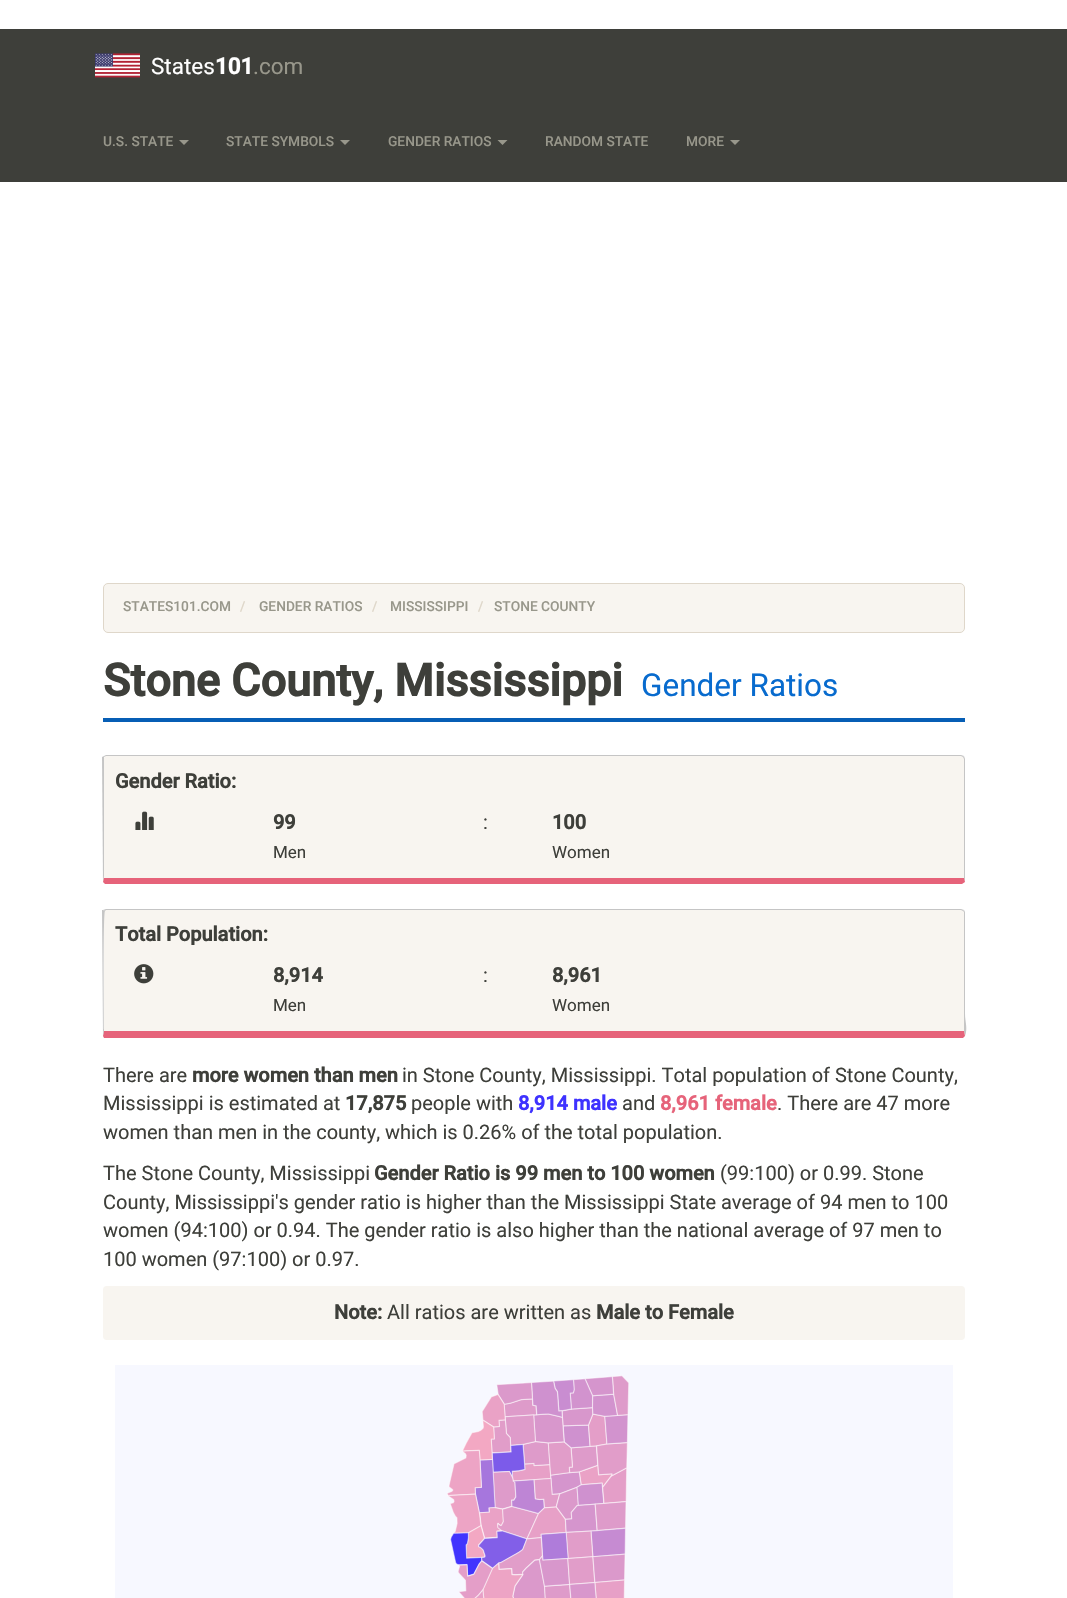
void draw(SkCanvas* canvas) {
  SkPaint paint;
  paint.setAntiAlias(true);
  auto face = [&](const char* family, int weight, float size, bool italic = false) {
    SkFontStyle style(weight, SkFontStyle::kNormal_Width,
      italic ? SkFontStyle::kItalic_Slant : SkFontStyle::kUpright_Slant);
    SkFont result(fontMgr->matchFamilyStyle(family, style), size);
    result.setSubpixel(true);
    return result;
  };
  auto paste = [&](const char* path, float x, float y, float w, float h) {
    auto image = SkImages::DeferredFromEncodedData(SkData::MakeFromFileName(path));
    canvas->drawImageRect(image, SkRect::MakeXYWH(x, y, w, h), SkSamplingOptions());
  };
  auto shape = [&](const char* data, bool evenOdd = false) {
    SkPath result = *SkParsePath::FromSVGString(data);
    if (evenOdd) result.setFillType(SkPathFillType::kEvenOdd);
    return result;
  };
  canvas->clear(0xffffffff);
  paint.setColor(0xff3e3f3a);
  canvas->drawRect(SkRect::MakeXYWH(0, 29, 1067, 153), paint);
  paste("img/1.png", 95, 53, 45, 25);
  paint.setColor(0xff98978b);
  canvas->drawPath(shape("M179 140H189L184 145Z"), paint);
  canvas->drawPath(shape("M340 140H350L345 145Z"), paint);
  canvas->drawPath(shape("M497.5 140H507.5L502.5 145Z"), paint);
  canvas->drawPath(shape("M730 140H740L735 145Z"), paint);
  paint.setColor(0xfff8f5f0);
  canvas->drawRoundRect(SkRect::MakeXYWH(103.5f, 583.5f, 861, 49), 4.5f, 4.5f, paint);
  paint.setStroke(true);
  paint.setStrokeWidth(1);
  paint.setColor(0xffdfd7ca);
  canvas->drawRoundRect(SkRect::MakeXYWH(103.5f, 583.5f, 861, 49), 4.5f, 4.5f, paint);
  paint.setStroke(false);
  paint.setColor(0xff075eb5);
  canvas->drawRect(SkRect::MakeXYWH(103, 718, 862, 4), paint);
  paint.setColor(0xfff8f5f0);
  canvas->drawPath(shape("M106 756H961C963 756 964 757 964 759V878H104V759C104 757 105 756 106 756Z"), paint);
  paint.setColor(0xffc5c5c5);
  canvas->drawPath(shape("M106 755L104 756V757L106 756H961L963 757L964 756L961 755Z"), paint);
  canvas->drawPath(shape("M965 880V759L964 756L963 757L964 759V878L965 882Z"), paint);
  paint.setColor(0xffe6637a);
  canvas->drawPath(shape("M105 884L103 882L104 876V878H964L965 882L962 884Z"), paint);
  paint.setColor(0xffc5c5c5);
  canvas->drawPath(shape("M102 757L104 756V757V759V876L103 882Z"), paint);
  paste("img/2.png", 135, 811, 19, 19);
  paint.setColor(0xfff8f5f0);
  canvas->drawPath(shape("M106 910H961C963 910 964 911 964 912V1031H104V912C104 911 105 910 106 910Z"), paint);
  paint.setColor(0xffc5c5c5);
  canvas->drawPath(shape("M106 909L103 910L105 911L106 910H961L963 911L964 910L961 909Z"), paint);
  canvas->drawPath(shape("M964 910L965 912V1014C965 1021 968 1029 965 1036L964 1031V912L963 911Z"), paint);
  paint.setColor(0xffe6637a);
  canvas->drawPath(shape("M104 1038L103 1036L104 1030V1031H964L965 1036L963 1038Z"), paint);
  paint.setColor(0xffc5c5c5);
  canvas->drawPath(shape("M102 910H103L105 911C103 912 104 1018 104 1030L103 1036Z"), paint);
  paste("img/3.png", 134, 964, 20, 20);
  paint.setColor(0xfff8f5f0);
  canvas->drawRoundRect(SkRect::MakeXYWH(103, 1286, 862, 54), 4, 4, paint);
  paint.setColor(0xfff7f8ff);
  canvas->drawRect(SkRect::MakeXYWH(115, 1365, 838, 233), paint);
  paste("img/4.png", 447, 1375, 182, 223);
  auto f0 = face("Roboto", 400, 22.5f);
  paint.setColor(0xffffffff);
  canvas->drawString("States", 151, 74, f0, paint);
  auto f1 = face("Roboto", 700, 22.5f);
  canvas->drawString("101", 215, 74, f1, paint);
  paint.setColor(0xff98978b);
  canvas->drawString(".com", 253, 74, f0, paint);
  auto f2 = face("Roboto", 500, 13.75f);
  {
    const struct { const char* s; float x, y; } items[] = {
      {"U.S. STATE", 103, 146},
      {"STATE SYMBOLS", 226, 146},
      {"GENDER RATIOS", 388, 146},
      {"RANDOM STATE", 545, 146},
      {"MORE", 686, 146},
      {"STATES101.COM", 123, 611},
    };
    for (auto [s, x, y] : items) {
      canvas->drawString(s, x, y, f2, paint);
    }
  }
  paint.setColor(0xffdfd7ca);
  canvas->drawString("/", 240, 611, f2, paint);
  paint.setColor(0xff98978b);
  canvas->drawString("GENDER RATIOS", 259, 611, f2, paint);
  paint.setColor(0xffdfd7ca);
  canvas->drawString("/", 372, 611, f2, paint);
  paint.setColor(0xff98978b);
  canvas->drawString("MISSISSIPPI", 390, 611, f2, paint);
  paint.setColor(0xffdfd7ca);
  canvas->drawString("/", 478, 611, f2, paint);
  paint.setColor(0xff98978b);
  canvas->drawString("STONE COUNTY", 494, 611, f2, paint);
  auto f3 = face("Roboto", 700, 45);
  paint.setColor(0xff3e3f3a);
  canvas->drawString("Stone County, Mississippi", 103, 696, f3, paint);
  auto f4 = face("Roboto", 400, 31.5f);
  paint.setColor(0xff086bce);
  canvas->drawString("Gender Ratios", 641, 696, f4, paint);
  auto f5 = face("Roboto", 700, 20);
  paint.setColor(0xff3e3f3a);
  canvas->drawString("Gender Ratio:", 115, 788, f5, paint);
  canvas->drawString("99", 273, 829, f5, paint);
  auto f6 = face("Roboto", 400, 17);
  canvas->drawString("Men", 273, 858, f6, paint);
  auto f7 = face("Roboto", 400, 20);
  canvas->drawString(":", 483, 829, f7, paint);
  canvas->drawString("100", 552, 829, f5, paint);
  canvas->drawString("Women", 552, 858, f6, paint);
  canvas->drawString("Total Population:", 115, 941, f5, paint);
  canvas->drawString("8,914", 273, 982, f5, paint);
  canvas->drawString("Men", 273, 1011, f6, paint);
  canvas->drawString(":", 483, 982, f7, paint);
  canvas->drawString("8,961", 552, 982, f5, paint);
  canvas->drawString("Women", 552, 1011, f6, paint);
  canvas->drawString("There are", 103, 1082, f7, paint);
  canvas->drawString("more women than men", 192, 1082, f5, paint);
  canvas->drawString("in Stone County, Mississippi. Total population of Stone County,", 402, 1082, f7, paint);
  canvas->drawString("Mississippi is estimated at", 103, 1110, f7, paint);
  canvas->drawString("17,875", 345, 1110, f5, paint);
  canvas->drawString("people with", 411, 1110, f7, paint);
  paint.setColor(0xff3e32ff);
  canvas->drawString("8,914 male", 518, 1110, f5, paint);
  paint.setColor(0xff3e3f3a);
  canvas->drawString("and", 622, 1110, f7, paint);
  paint.setColor(0xffe6637a);
  canvas->drawString("8,961 female", 660, 1110, f5, paint);
  paint.setColor(0xff3e3f3a);
  {
    const struct { const char* s; float x, y; } items[] = {
      {". There are 47 more", 777, 1110},
      {"women than men in the county, which is 0.26% of the total population.", 103, 1139},
      {"The Stone County, Mississippi", 103, 1180},
    };
    for (auto [s, x, y] : items) {
      canvas->drawString(s, x, y, f7, paint);
    }
  }
  canvas->drawString("Gender Ratio is 99 men to 100 women", 374, 1180, f5, paint);
  {
    const struct { const char* s; float x, y; } items[] = {
      {"(99:100) or 0.99. Stone", 720, 1180},
      {"County, Mississippi's gender ratio is higher than the Mississippi State average of 94 men to 100", 103, 1209},
      {"women (94:100) or 0.94. The gender ratio is also higher than the national average of 97 men to", 103, 1237},
      {"100 women (97:100) or 0.97.", 103, 1266},
    };
    for (auto [s, x, y] : items) {
      canvas->drawString(s, x, y, f7, paint);
    }
  }
  canvas->drawString("Note:", 334, 1319, f5, paint);
  canvas->drawString("All ratios are written as", 387, 1319, f7, paint);
  canvas->drawString("Male to Female", 596, 1319, f5, paint);
}
